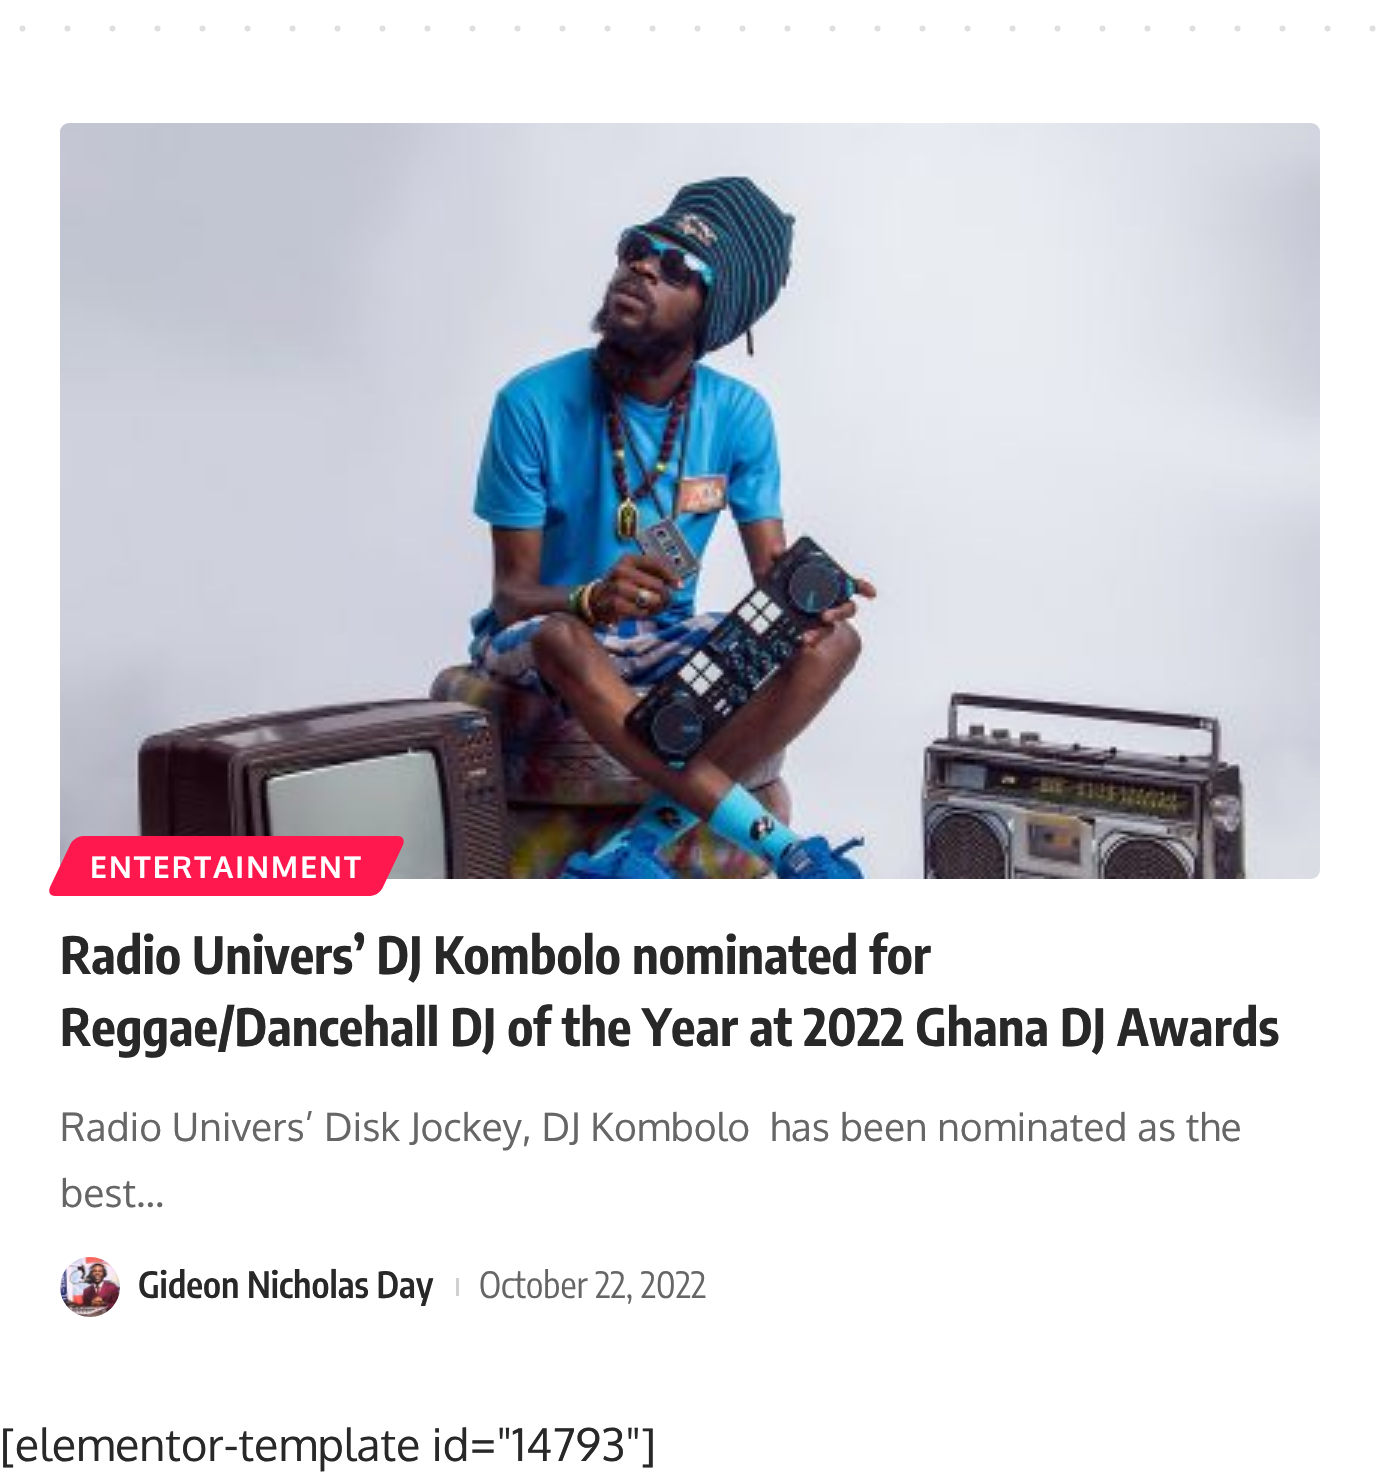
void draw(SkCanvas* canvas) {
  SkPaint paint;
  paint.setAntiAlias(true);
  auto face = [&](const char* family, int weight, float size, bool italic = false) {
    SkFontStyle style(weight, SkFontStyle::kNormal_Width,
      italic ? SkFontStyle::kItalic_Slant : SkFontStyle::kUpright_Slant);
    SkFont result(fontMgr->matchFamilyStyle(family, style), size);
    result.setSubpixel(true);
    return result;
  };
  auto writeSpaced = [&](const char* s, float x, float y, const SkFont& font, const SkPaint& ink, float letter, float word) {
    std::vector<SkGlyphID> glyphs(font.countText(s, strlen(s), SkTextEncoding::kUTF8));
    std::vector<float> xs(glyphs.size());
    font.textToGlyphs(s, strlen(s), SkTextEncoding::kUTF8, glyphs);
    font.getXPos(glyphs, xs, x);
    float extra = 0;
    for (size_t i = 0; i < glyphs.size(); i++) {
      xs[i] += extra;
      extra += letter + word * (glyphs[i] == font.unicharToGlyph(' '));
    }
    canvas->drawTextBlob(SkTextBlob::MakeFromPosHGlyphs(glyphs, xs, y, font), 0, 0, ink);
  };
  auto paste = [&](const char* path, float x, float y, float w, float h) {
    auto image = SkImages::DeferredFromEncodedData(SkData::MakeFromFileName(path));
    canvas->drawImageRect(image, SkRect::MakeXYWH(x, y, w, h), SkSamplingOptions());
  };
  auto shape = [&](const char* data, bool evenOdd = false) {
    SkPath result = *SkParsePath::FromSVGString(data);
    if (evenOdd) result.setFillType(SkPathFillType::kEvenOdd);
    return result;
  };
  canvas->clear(0xffffffff);
  paint.setStroke(true);
  paint.setStrokeWidth(6);
  paint.setStrokeCap(SkPaint::kRound_Cap);
  paint.setColor(0xffdfdfdf);
  paint.setPathEffect(SkDashPathEffect::Make({{0, 45}}, 0));
  canvas->drawPath(shape("M22.5 28.5H1373.1"), paint);
  paint.setPathEffect(nullptr);
  paste("img/1.png", 60, 123, 1260, 756);
  paint.setStroke(false);
  paint.setColor(0xffff184e);
  canvas->drawPath(shape("M83 836H398C403 836 405 840 403 845L383 887C381 892 375 896 370 896H55C50 896 48 892 50 887L70 845C72 840 78 836 83 836Z"), paint);
  paste("img/2.png", 60, 1257, 60, 60);
  paint.setColor(0xffd1d1d1);
  canvas->drawRect(SkRect::MakeXYWH(456, 1278, 3, 18), paint);
  auto f0 = face("Oxygen", 700, 30);
  paint.setColor(0xffffffff);
  writeSpaced("ENTERTAINMENT", 90, 878, f0, paint, 2.1f, 0);
  auto f1 = face("Encode Sans Condensed", 700, 51);
  paint.setColor(0xff282828);
  canvas->drawString("Radio Univers’ DJ Kombolo nominated for", 60, 974, f1, paint);
  canvas->drawString("Reggae/Dancehall DJ of the Year at 2022 Ghana DJ Awards", 60, 1046, f1, paint);
  auto f2 = face("Oxygen", 400, 39);
  paint.setColor(0xff666666);
  canvas->drawString("Radio Univers’ Disk Jockey, DJ Kombolo  has been nominated as the", 60, 1141, f2, paint);
  canvas->drawString("best…", 60, 1207, f2, paint);
  auto f3 = face("Encode Sans Condensed", 600, 36);
  paint.setColor(0xff282828);
  canvas->drawString("Gideon Nicholas Day", 138, 1298, f3, paint);
  auto f4 = face("Encode Sans Condensed", 400, 36);
  paint.setColor(0xff666666);
  canvas->drawString("October 22, 2022", 479, 1298, f4, paint);
  auto f5 = face("Oxygen", 400, 45);
  paint.setColor(0xff282828);
  canvas->drawString("[elementor-template id=\"14793\"]", 0, 1461, f5, paint);
}
